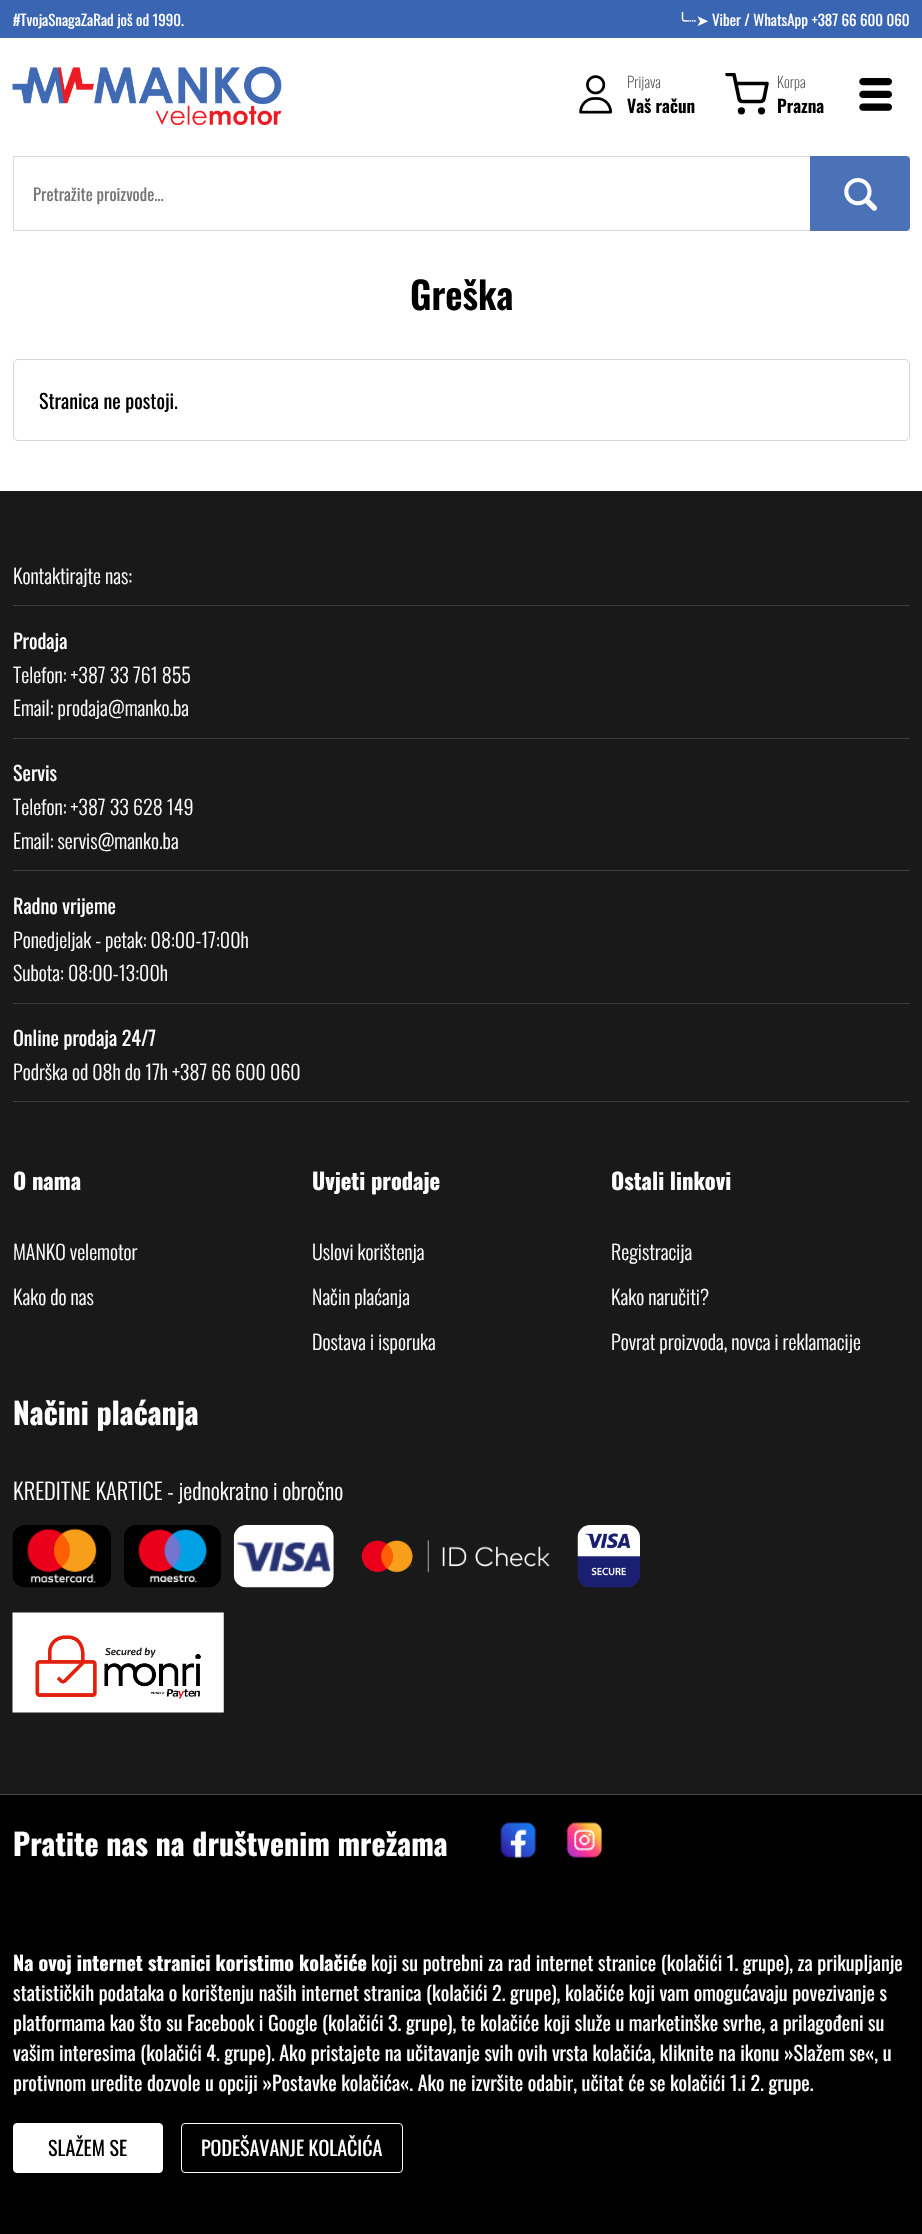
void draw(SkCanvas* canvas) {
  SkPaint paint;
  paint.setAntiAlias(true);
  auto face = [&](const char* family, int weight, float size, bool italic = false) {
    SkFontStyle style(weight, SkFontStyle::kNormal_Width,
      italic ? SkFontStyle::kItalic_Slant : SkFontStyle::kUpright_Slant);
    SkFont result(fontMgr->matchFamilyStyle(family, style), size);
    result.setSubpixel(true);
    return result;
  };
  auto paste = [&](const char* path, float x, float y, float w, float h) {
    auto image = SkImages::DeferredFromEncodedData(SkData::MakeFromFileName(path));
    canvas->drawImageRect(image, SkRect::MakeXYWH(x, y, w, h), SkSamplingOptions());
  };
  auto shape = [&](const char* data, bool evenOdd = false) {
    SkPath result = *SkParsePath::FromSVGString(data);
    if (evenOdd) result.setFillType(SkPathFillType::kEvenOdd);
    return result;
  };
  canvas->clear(0xffffffff);
  paint.setColor(0xff3965b2);
  canvas->drawRect(SkRect::MakeXYWH(0, 0, 922, 38), paint);
  paste("img/1.png", 12, 66, 270, 59);
  paste("img/2.png", 579, 75, 33, 39);
  paint.setStroke(true);
  paint.setStrokeWidth(3.6f);
  paint.setColor(0xff000000);
  canvas->drawCircle(741.4f, 110.8f, 1.8f, paint);
  canvas->drawCircle(761.5f, 110.8f, 1.8f, paint);
  canvas->save();
  canvas->clipRect(SkRect::MakeXYWH(725, 73, 44, 43));
  paint.setStrokeCap(SkPaint::kRound_Cap);
  paint.setStrokeJoin(SkPaint::kRound_Join);
  canvas->drawPath(shape("M727 74.5H734L739 98.5C739.5 100.5 741 101.5 742.5 101.5H760.5C762 101.5 763.5 100.5 764 98.5L767 83.5H736"), paint);
  canvas->restore();
  paste("img/3.png", 859, 78, 33, 33);
  paint.setStrokeWidth(1);
  paint.setStrokeCap(SkPaint::kButt_Cap);
  paint.setStrokeJoin(SkPaint::kMiter_Join);
  paint.setColor(0xffdadada);
  canvas->drawRect(SkRect::MakeXYWH(13.5f, 156.5f, 896, 74), paint);
  paint.setStroke(false);
  paint.setColor(0xff4b72b6);
  canvas->drawPath(shape("M810.5 156.5H906C908 156.5 909.5 158 909.5 160V227C909.5 229 908 230.5 906 230.5H810.5Z"), paint);
  paint.setStroke(true);
  canvas->drawPath(shape("M810.5 156.5H906C908 156.5 909.5 158 909.5 160V227C909.5 229 908 230.5 906 230.5H810.5Z"), paint);
  paste("img/4.png", 844, 178, 33, 33);
  paint.setColor(0xffd7d7d7);
  canvas->drawRoundRect(SkRect::MakeXYWH(13.5f, 359.5f, 896, 81), 4.5f, 4.5f, paint);
  paint.setStroke(false);
  {
    const struct { float x, y, w, h; SkColor color; } items[] = {
      {0, 491, 922, 1303, 0xff191919},
      {0, 1794, 922, 1, 0xff474747},
      {13, 605, 897, 1, 0xff3c3c3c},
      {13, 738, 897, 1, 0xff3c3c3c},
      {13, 870, 897, 1, 0xff3c3c3c},
      {13, 1003, 897, 1, 0xff3c3c3c},
      {13, 1101, 897, 1, 0xff3c3c3c},
    };
    for (auto [x, y, w, h, color] : items) {
      paint.setColor(color);
      canvas->drawRect(SkRect::MakeXYWH(x, y, w, h), paint);
    }
  }
  paste("img/5.png", 12, 1525, 99, 63);
  paste("img/6.png", 124, 1525, 97, 63);
  paste("img/7.png", 233, 1525, 101, 63);
  paste("img/8.png", 361, 1540, 189, 33);
  paste("img/9.png", 577, 1525, 63, 63);
  paste("img/10.png", 12, 1612, 212, 101);
  paint.setColor(0xff000000);
  canvas->drawRect(SkRect::MakeXYWH(0, 1795, 922, 439), paint);
  paste("img/11.png", 500, 1822, 36, 36);
  paste("img/12.png", 566, 1822, 36, 36);
  paint.setColor(0xffffffff);
  canvas->drawRoundRect(SkRect::MakeXYWH(13.5f, 2123.5f, 149, 49), 3.5f, 3.5f, paint);
  paint.setStroke(true);
  canvas->drawRoundRect(SkRect::MakeXYWH(13.5f, 2123.5f, 149, 49), 3.5f, 3.5f, paint);
  canvas->drawRoundRect(SkRect::MakeXYWH(181.5f, 2123.5f, 221, 49), 3.5f, 3.5f, paint);
  auto f0 = face("Oswald", 400, 15);
  paint.setStroke(false);
  canvas->drawString("#TvojaSnagaZaRad još od 1990.", 13, 26, f0, paint);
  auto f1 = face("DejaVu Sans", 400, 15);
  canvas->drawString("╰┈➤", 678, 26, f1, paint);
  canvas->drawString("Viber / WhatsApp +387 66 600 060", 712, 26, f0, paint);
  auto f2 = face("Oswald", 200, 15);
  paint.setColor(0xff4d4d4d);
  canvas->drawString("Prijava", 627, 88, f2, paint);
  auto f3 = face("Oswald", 600, 17.5f);
  paint.setColor(0xff000000);
  canvas->drawString("Vaš račun", 627, 113, f3, paint);
  paint.setColor(0xff4d4d4d);
  canvas->drawString("Korpa", 777, 88, f2, paint);
  paint.setColor(0xff000000);
  canvas->drawString("Prazna", 777, 113, f3, paint);
  auto f4 = face("Oswald", 400, 16.75f);
  paint.setColor(0xff757575);
  canvas->drawString("Pretražite proizvode...", 33, 201, f4, paint);
  auto f5 = face("Oswald", 600, 37.5f);
  paint.setColor(0xff000000);
  canvas->drawString("Greška", 410, 310, f5, paint);
  auto f6 = face("Oswald", 400, 20);
  canvas->drawString("Stranica ne postoji.", 39, 409, f6, paint);
  auto f7 = face("Oswald", 300, 20);
  paint.setColor(0xffffffff);
  canvas->drawString("Kontaktirajte nas:", 13, 584, f7, paint);
  canvas->drawString("Prodaja", 13, 649, f6, paint);
  canvas->drawString("Telefon: +387 33 761 855", 13, 683, f7, paint);
  canvas->drawString("Email: prodaja@manko.ba", 13, 716, f7, paint);
  canvas->drawString("Servis", 13, 781, f6, paint);
  canvas->drawString("Telefon: +387 33 628 149", 13, 815, f7, paint);
  canvas->drawString("Email: servis@manko.ba", 13, 849, f7, paint);
  canvas->drawString("Radno vrijeme", 13, 914, f6, paint);
  canvas->drawString("Ponedjeljak - petak: 08:00-17:00h", 13, 948, f7, paint);
  canvas->drawString("Subota: 08:00-13:00h", 13, 981, f7, paint);
  canvas->drawString("Online prodaja 24/7", 13, 1046, f6, paint);
  canvas->drawString("Podrška od 08h do 17h +387 66 600 060", 13, 1080, f7, paint);
  auto f8 = face("Oswald", 700, 22.5f);
  canvas->drawString("O nama", 13, 1190, f8, paint);
  canvas->drawString("MANKO velemotor", 13, 1260, f7, paint);
  canvas->drawString("Kako do nas", 13, 1305, f7, paint);
  canvas->drawString("Uvjeti prodaje", 312, 1190, f8, paint);
  {
    const struct { const char* s; float x, y; } items[] = {
      {"Uslovi korištenja", 312, 1260},
      {"Način plaćanja", 312, 1305},
      {"Dostava i isporuka", 312, 1350},
    };
    for (auto [s, x, y] : items) {
      canvas->drawString(s, x, y, f7, paint);
    }
  }
  canvas->drawString("Ostali linkovi", 611, 1190, f8, paint);
  {
    const struct { const char* s; float x, y; } items[] = {
      {"Registracija", 611, 1260},
      {"Kako naručiti?", 611, 1305},
      {"Povrat proizvoda, novca i reklamacije", 611, 1350},
    };
    for (auto [s, x, y] : items) {
      canvas->drawString(s, x, y, f7, paint);
    }
  }
  auto f9 = face("Oswald", 700, 30);
  canvas->drawString("Načini plaćanja", 13, 1425, f9, paint);
  auto f10 = face("Oswald", 300, 22.5f);
  canvas->drawString("KREDITNE KARTICE - jednokratno i obročno", 13, 1500, f10, paint);
  canvas->drawString("Pratite nas na društvenim mrežama", 13, 1856, f9, paint);
  auto f11 = face("Oswald", 700, 20);
  canvas->drawString("Na ovoj internet stranici koristimo kolačiće", 13, 1971, f11, paint);
  {
    const struct { const char* s; float x, y; } items[] = {
      {"koji su potrebni za rad internet stranice (kolačići 1. grupe), za prikupljanje", 371, 1971},
      {"statističkih podataka o korištenju naših internet stranica (kolačići 2. grupe), kolačiće koji vam omogućavaju povezivanje s", 13, 2001},
      {"platformama kao što su Facebook i Google (kolačići 3. grupe), te kolačiće koji služe u marketinške svrhe, a prilagođeni su", 13, 2031},
      {"vašim interesima (kolačići 4. grupe). Ako pristajete na učitavanje svih ovih vrsta kolačića, kliknite na ikonu »Slažem se«, u", 13, 2061},
      {"protivnom uredite dozvole u opciji »Postavke kolačića«. Ako ne izvršite odabir, učitat će se kolačići 1.i 2. grupe.", 13, 2091},
    };
    for (auto [s, x, y] : items) {
      canvas->drawString(s, x, y, f6, paint);
    }
  }
  paint.setColor(0xff000000);
  canvas->drawString("SLAŽEM SE", 48, 2156, f6, paint);
  paint.setColor(0xffffffff);
  canvas->drawString("PODEŠAVANJE KOLAČIĆA", 201, 2156, f6, paint);
}
